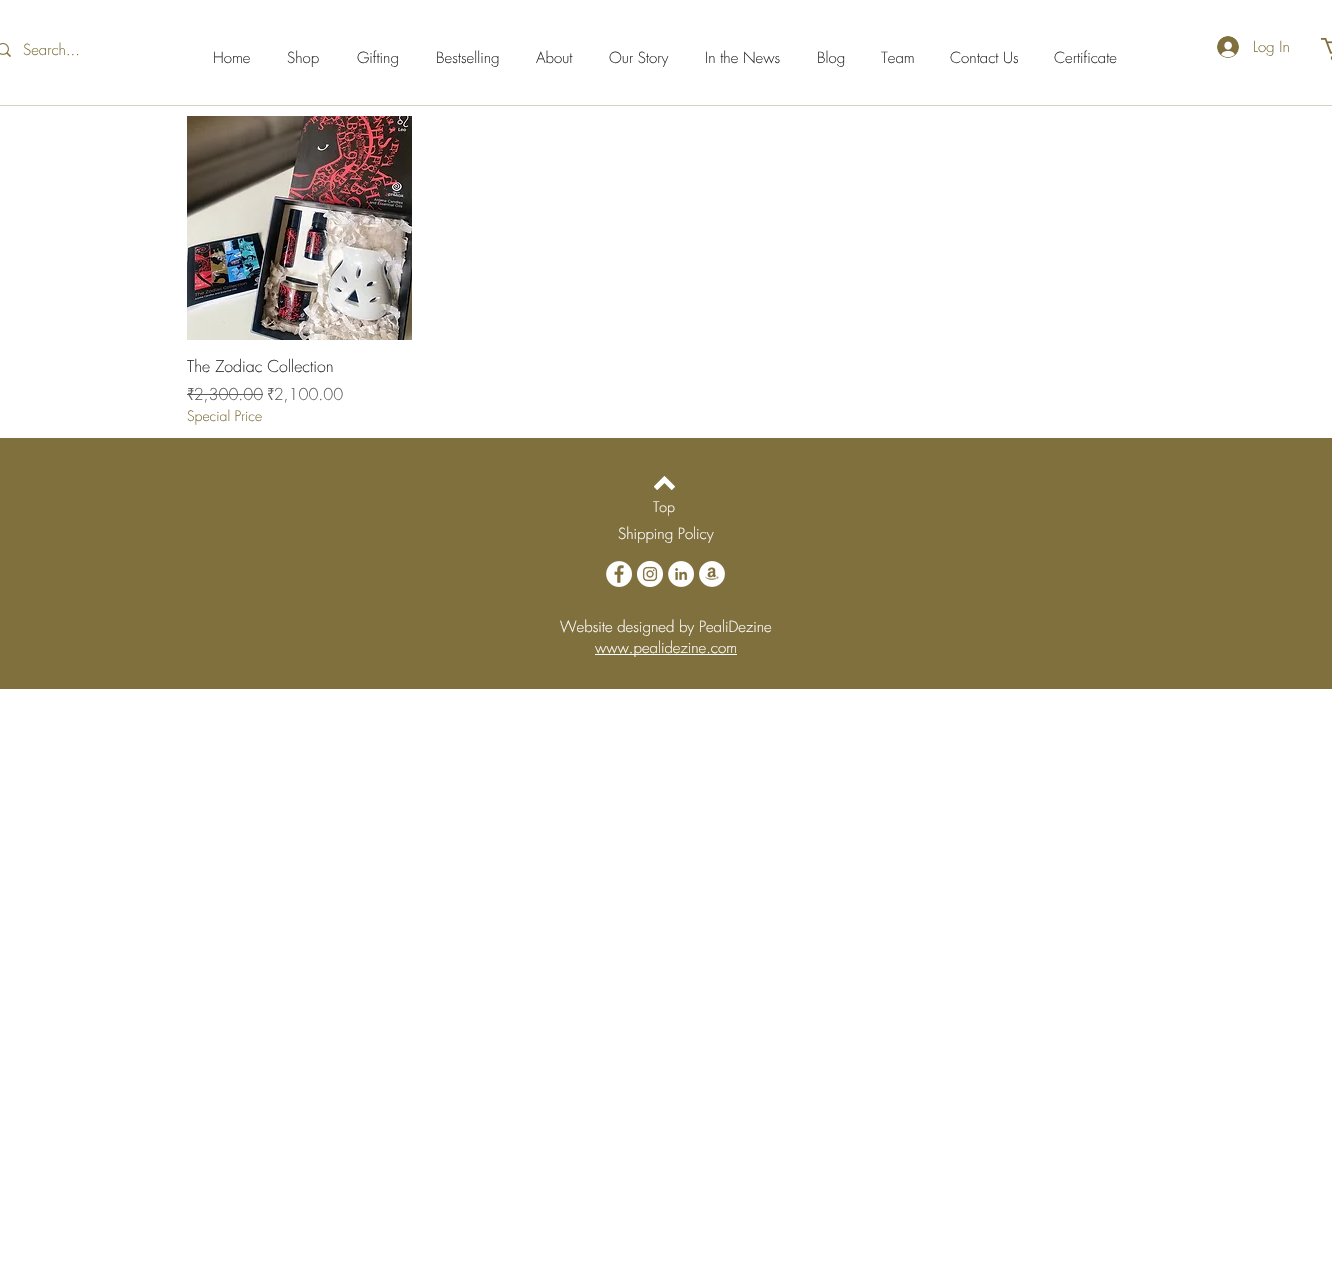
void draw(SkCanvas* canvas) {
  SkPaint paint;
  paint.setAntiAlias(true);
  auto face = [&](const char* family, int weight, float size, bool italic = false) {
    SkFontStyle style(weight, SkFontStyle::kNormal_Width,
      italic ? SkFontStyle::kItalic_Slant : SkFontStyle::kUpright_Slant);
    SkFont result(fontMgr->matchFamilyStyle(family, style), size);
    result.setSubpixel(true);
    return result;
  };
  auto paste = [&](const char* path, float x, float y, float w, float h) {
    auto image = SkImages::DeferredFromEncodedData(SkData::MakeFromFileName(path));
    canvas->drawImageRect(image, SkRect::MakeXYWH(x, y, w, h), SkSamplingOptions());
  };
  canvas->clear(0xffffffff);
  paste("img/1.png", 0, 43, 11, 14);
  paste("img/2.png", 1217, 36, 22, 22);
  paste("img/3.png", 1321, 38, 11, 23);
  paint.setColor(0xffd5d0bf);
  canvas->drawRect(SkRect::MakeXYWH(0, 105, 1332, 1), paint);
  paste("img/4.png", 187, 116, 225, 224);
  paint.setColor(0xff5e5d5d);
  canvas->drawRect(SkRect::MakeXYWH(187, 394, 76, 1), paint);
  paint.setColor(0xff7f703d);
  canvas->drawRect(SkRect::MakeXYWH(0, 438, 1332, 251), paint);
  paste("img/5.png", 654, 476, 21, 14);
  paste("img/6.png", 606, 561, 26, 26);
  paste("img/7.png", 637, 561, 26, 26);
  paste("img/8.png", 668, 561, 26, 26);
  paste("img/9.png", 699, 561, 26, 26);
  paint.setColor(0xffffffff);
  canvas->drawRect(SkRect::MakeXYWH(595, 654, 142, 1), paint);
  auto f0 = face("futura", 300, 15);
  paint.setColor(0xff7f703d);
  canvas->drawString("Search...", 23, 55, f0, paint);
  paint.setColor(0xff2c2c2b);
  {
    const struct { const char* s; float x, y; } items[] = {
      {"Home", 213, 63},
      {"Shop", 287, 63},
      {"Gifting", 357, 63},
      {"Bestselling", 436, 63},
      {"About", 536, 63},
      {"Our Story", 609, 63},
      {"In the News", 705, 63},
      {"Blog", 817, 63},
      {"Team", 881, 63},
      {"Contact Us", 950, 63},
      {"Certificate", 1054, 63},
    };
    for (auto [s, x, y] : items) {
      canvas->drawString(s, x, y, f0, paint);
    }
  }
  paint.setColor(0xff7f703d);
  canvas->drawString("Log In", 1253, 52, f0, paint);
  auto f1 = face("futura", 300, 16);
  paint.setColor(0xff2c2c2b);
  canvas->drawString("The Zodiac Collection", 187, 372, f1, paint);
  paint.setColor(0xff5e5d5d);
  canvas->drawString("₹2,300.00", 187, 400, f1, paint);
  canvas->drawString("₹2,100.00", 267, 400, f1, paint);
  auto f2 = face("futura", 300, 14);
  paint.setColor(0xff7f703d);
  canvas->drawString("Special Price", 187, 421, f2, paint);
  paint.setColor(0xffffffff);
  canvas->drawString("Top", 653, 512, f2, paint);
  {
    const struct { const char* s; float x, y; } items[] = {
      {"Shipping Policy", 618, 539},
      {"Website designed by PealiDezine", 560, 632},
      {"www.pealidezine.com", 595, 653},
    };
    for (auto [s, x, y] : items) {
      canvas->drawString(s, x, y, f0, paint);
    }
  }
}
